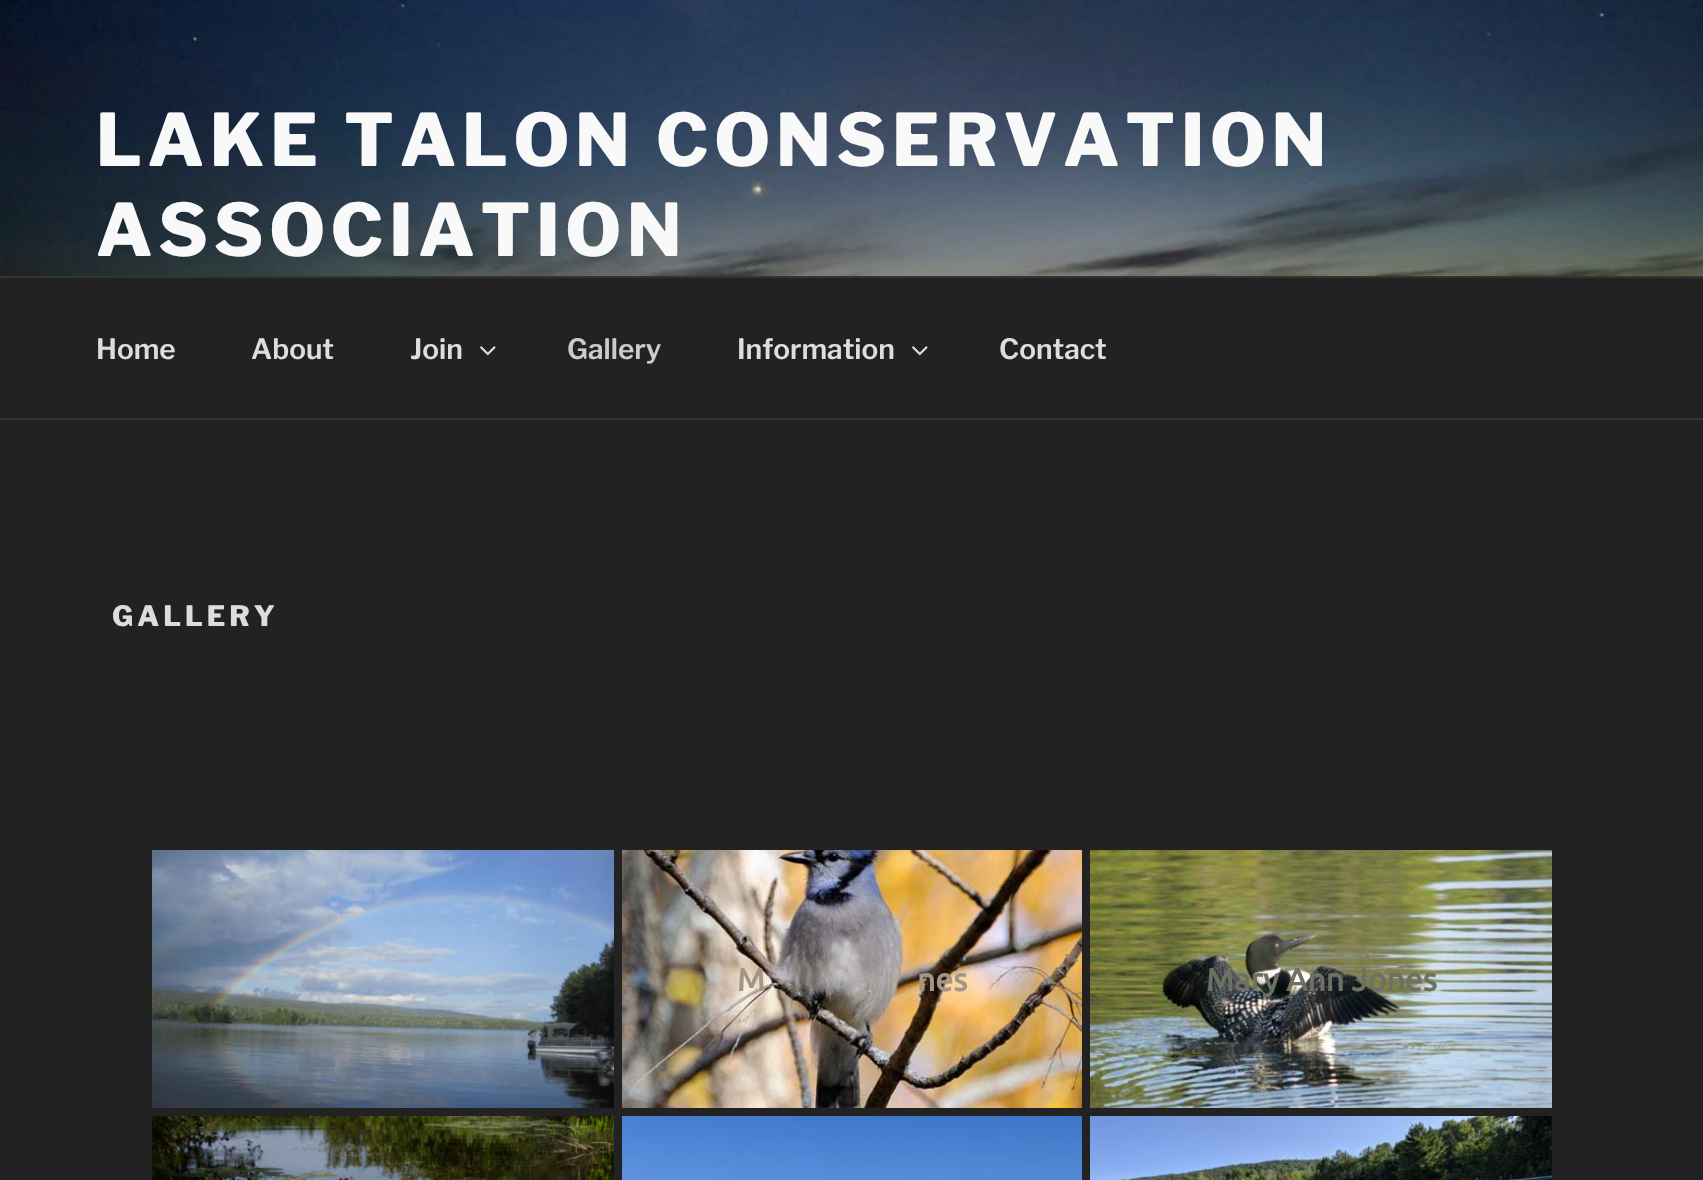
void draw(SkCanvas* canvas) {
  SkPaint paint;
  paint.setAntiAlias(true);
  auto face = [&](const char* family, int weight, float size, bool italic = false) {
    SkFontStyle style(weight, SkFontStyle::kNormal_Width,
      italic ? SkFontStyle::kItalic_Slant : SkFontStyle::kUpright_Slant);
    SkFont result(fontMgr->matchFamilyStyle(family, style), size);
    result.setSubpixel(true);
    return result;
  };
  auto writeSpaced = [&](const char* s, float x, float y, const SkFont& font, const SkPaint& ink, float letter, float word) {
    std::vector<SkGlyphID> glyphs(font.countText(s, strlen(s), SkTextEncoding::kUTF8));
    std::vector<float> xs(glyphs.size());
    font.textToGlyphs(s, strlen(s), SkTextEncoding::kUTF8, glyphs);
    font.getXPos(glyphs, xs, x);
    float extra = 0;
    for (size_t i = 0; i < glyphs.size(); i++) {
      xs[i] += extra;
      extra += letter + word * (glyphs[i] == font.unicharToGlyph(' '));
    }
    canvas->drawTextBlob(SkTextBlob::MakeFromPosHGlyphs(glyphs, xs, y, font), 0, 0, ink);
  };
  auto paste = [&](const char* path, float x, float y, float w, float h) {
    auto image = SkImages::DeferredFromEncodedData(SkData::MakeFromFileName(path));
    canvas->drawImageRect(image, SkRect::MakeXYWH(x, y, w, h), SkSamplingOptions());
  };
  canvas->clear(0xff222222);
  paste("img/1.png", 0, 0, 1703, 276);
  paint.setColor(0xff333333);
  canvas->drawRect(SkRect::MakeXYWH(0, 276, 1703, 2), paint);
  canvas->drawRect(SkRect::MakeXYWH(0, 418, 1703, 2), paint);
  paste("img/2.png", 480, 346, 16, 10);
  paste("img/2.png", 912, 346, 16, 10);
  paste("img/3.png", 152, 850, 462, 258);
  paste("img/4.png", 622, 850, 460, 258);
  paste("img/5.png", 1090, 850, 462, 258);
  paste("img/6.png", 152, 1116, 462, 64);
  paste("img/7.png", 622, 1116, 460, 64);
  paste("img/8.png", 1090, 1116, 462, 64);
  auto f0 = face("Libre Franklin", 800, 72);
  paint.setColor(0xfff9f9f9);
  writeSpaced("LAKE TALON CONSERVATION", 96, 166, f0, paint, 5.75f, 0);
  writeSpaced("ASSOCIATION", 96, 256, f0, paint, 5.75f, 0);
  auto f1 = face("Libre Franklin", 600, 28);
  paint.setColor(0xffdddddd);
  {
    const struct { const char* s; float x, y; } items[] = {
      {"Home", 96, 359},
      {"About", 251, 359},
      {"Join", 410, 359},
    };
    for (auto [s, x, y] : items) {
      canvas->drawString(s, x, y, f1, paint);
    }
  }
  paint.setColor(0xffcccccc);
  canvas->drawString("Gallery", 567, 359, f1, paint);
  paint.setColor(0xffdddddd);
  canvas->drawString("Information", 737, 359, f1, paint);
  canvas->drawString("Contact", 999, 359, f1, paint);
  auto f2 = face("Libre Franklin", 800, 28);
  writeSpaced("GALLERY", 112, 626, f2, paint, 4, 0);
  auto f3 = face("Ubuntu", 700, 32);
  paint.setColor(0xffa39586);
  canvas->drawString("M", 737, 991, f3, paint);
  canvas->drawString("nes", 917, 991, f3, paint);
  paint.setColor(0xff6d7063);
  canvas->drawString("Mary Ann Jones", 1206, 991, f3, paint);
}
